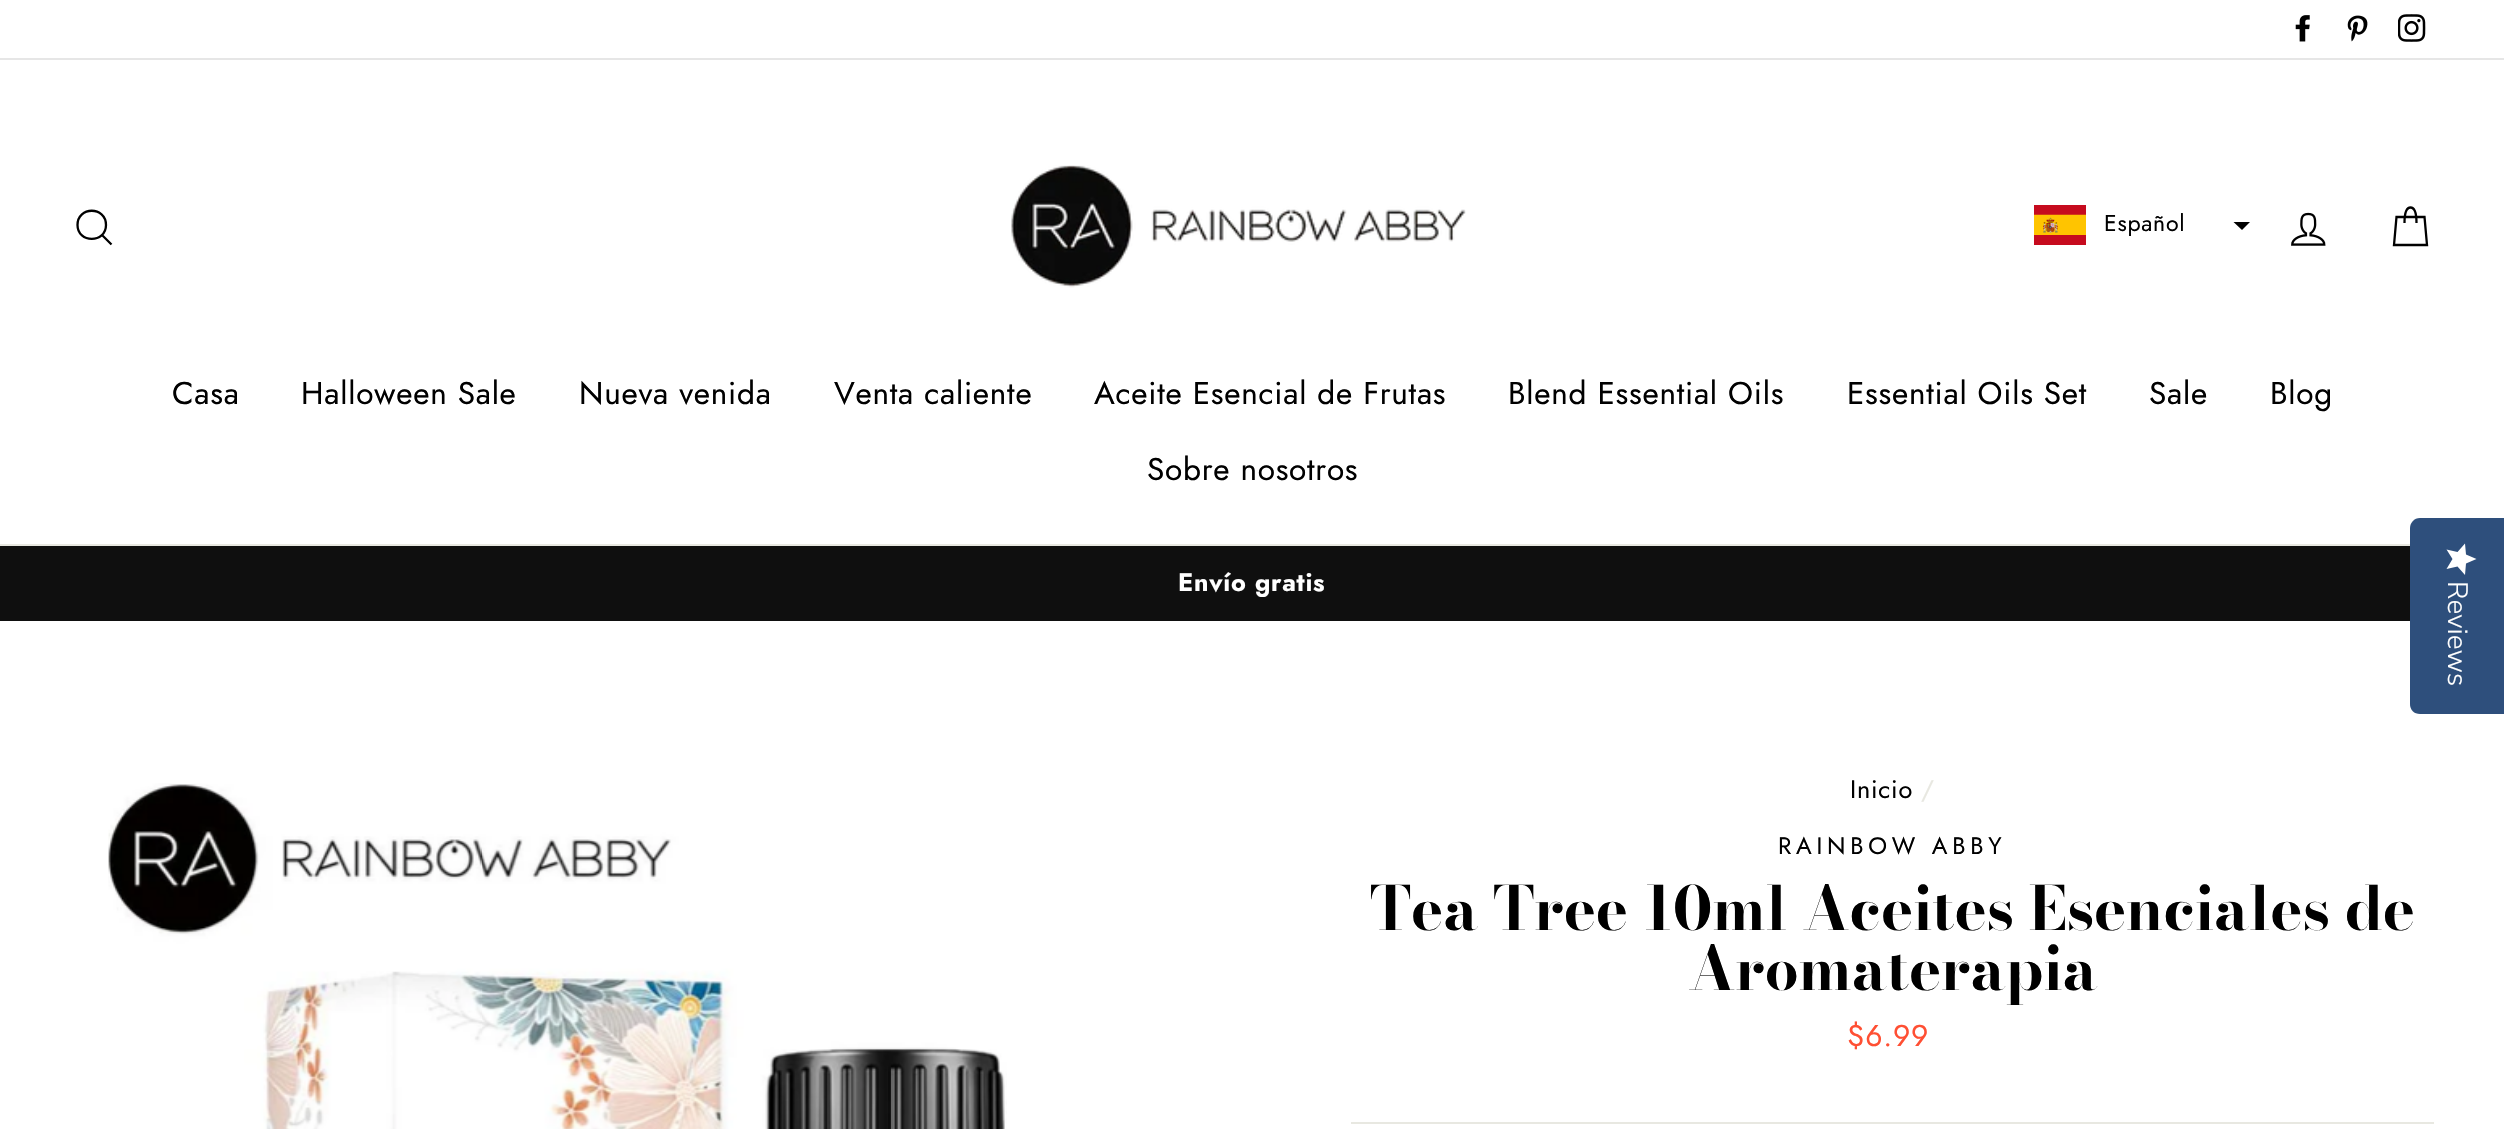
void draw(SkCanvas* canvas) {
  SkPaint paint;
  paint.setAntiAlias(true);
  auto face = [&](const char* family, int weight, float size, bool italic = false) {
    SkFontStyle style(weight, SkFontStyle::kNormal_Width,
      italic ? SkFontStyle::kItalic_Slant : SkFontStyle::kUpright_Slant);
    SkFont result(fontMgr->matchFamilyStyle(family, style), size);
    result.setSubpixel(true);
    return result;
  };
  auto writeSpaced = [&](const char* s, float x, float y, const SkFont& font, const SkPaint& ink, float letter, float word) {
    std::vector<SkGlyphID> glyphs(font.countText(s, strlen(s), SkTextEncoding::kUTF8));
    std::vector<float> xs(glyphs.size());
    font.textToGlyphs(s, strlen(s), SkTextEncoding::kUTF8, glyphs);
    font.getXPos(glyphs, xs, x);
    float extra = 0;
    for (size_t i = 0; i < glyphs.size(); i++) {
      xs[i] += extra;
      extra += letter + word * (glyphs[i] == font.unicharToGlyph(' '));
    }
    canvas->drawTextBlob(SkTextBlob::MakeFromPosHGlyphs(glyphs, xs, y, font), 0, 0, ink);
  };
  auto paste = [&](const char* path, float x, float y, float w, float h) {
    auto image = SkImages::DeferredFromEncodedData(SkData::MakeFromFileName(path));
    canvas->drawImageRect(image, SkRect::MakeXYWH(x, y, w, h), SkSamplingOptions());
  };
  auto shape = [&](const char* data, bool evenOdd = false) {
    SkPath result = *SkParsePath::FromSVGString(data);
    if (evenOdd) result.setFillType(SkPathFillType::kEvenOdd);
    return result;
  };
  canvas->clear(0xffffffff);
  paste("img/1.png", 2295, 15, 15, 27);
  paste("img/2.png", 2347, 15, 21, 27);
  paste("img/3.png", 2398, 14, 28, 28);
  paint.setColor(0xffe6e6e6);
  canvas->drawRect(SkRect::MakeXYWH(0, 58, 2504, 2), paint);
  paint.setColor(0xffe8e8e1);
  canvas->drawRect(SkRect::MakeXYWH(0, 544, 2410, 2), paint);
  paint.setStroke(true);
  paint.setStrokeWidth(2.3f);
  paint.setColor(0xff000000);
  canvas->drawPath(shape("M106 225C106 243.5 77.5 243.5 77.5 225C77.5 206 106 206 106 225ZM111.5 244.5L102 235"), paint);
  paste("img/4.png", 1011, 165, 455, 123);
  paste("img/5.png", 2034, 205, 52, 40);
  canvas->save();
  canvas->clipRect(SkRect::MakeXYWH(2233, 222, 18, 9));
  paint.setStroke(false);
  canvas->drawPath(shape("M2250.5 221.5L2242 230L2233 221.5Z", true), paint);
  canvas->restore();
  paste("img/6.png", 2291, 212, 35, 34);
  paint.setStroke(true);
  canvas->drawPath(shape("M2404.5 223C2404.5 211 2407 207.5 2410.5 207.5C2414 207.5 2416.5 211 2416.5 223M2396.5 217H2424.5L2427 245H2394Z"), paint);
  paint.setStroke(false);
  paint.setColor(0xff0f0f0f);
  canvas->drawRect(SkRect::MakeXYWH(0, 546, 2410, 75), paint);
  paste("img/7.png", 108, 783, 899, 346);
  paint.setColor(0xffe8e8e1);
  canvas->drawRect(SkRect::MakeXYWH(1351, 1122, 1083, 2), paint);
  paint.setColor(0xff2e4f7c);
  canvas->drawPath(shape("M2504 518V714H2420C2414 714 2410 710 2410 704V528C2410 523 2414 518 2420 518Z"), paint);
  {
    const SkColor colors[] = {0xffffffff, 0xffeaeaea};
    const float stops[] = {1, 1};
    const SkPoint ends[] = {{2476, 543}, {2476, 575}};
    paint.setShader(SkGradientShader::MakeLinear(ends, colors, stops, 2, SkTileMode::kClamp));
    paint.setAlpha(255);
  }
  canvas->drawPath(shape("M2452.5 559L2446.5 569L2457.5 566.5L2465 575L2466 563.5L2476.5 559L2466 554.5L2465 543.5L2457.5 552L2446.5 549.5Z"), paint);
  auto f0 = face("Jost", 400, 23);
  paint.setShader(nullptr);
  paint.setColor(0xff000000);
  writeSpaced("Español", 2104, 231, f0, paint, 0.75f, 0);
  auto f1 = face("Jost", 400, 31.5f);
  {
    const struct { const char* s; float x, y; } items[] = {
      {"Casa", 172, 404},
      {"Halloween Sale", 301, 404},
      {"Nueva venida", 579, 404},
      {"Venta caliente", 834, 404},
      {"Aceite Esencial de Frutas", 1094, 404},
      {"Blend Essential Oils", 1508, 404},
      {"Essential Oils Set", 1847, 404},
      {"Sale", 2149, 404},
      {"Blog", 2270, 404},
      {"Sobre nosotros", 1147, 480},
    };
    for (auto [s, x, y] : items) {
      writeSpaced(s, x, y, f1, paint, 0.75f, 0);
    }
  }
  auto f2 = face("Jost", 700, 25.25f);
  paint.setColor(0xffffffff);
  writeSpaced("Envío gratis", 1178, 591, f2, paint, 0.75f, 0);
  auto f3 = face("Jost", 400, 25.25f);
  paint.setColor(0xff000000);
  writeSpaced("Inicio", 1850, 798, f3, paint, 0.75f, 0);
  paint.setColor(0xffe8e8e1);
  writeSpaced("/", 1921, 798, f3, paint, 0.75f, 0);
  auto f4 = face("Jost", 400, 23.75f);
  paint.setColor(0xff000000);
  writeSpaced("RAINBOW ABBY", 1778, 854, f4, paint, 4.75f, 0);
  auto f5 = face("Bodoni Moda", 700, 60.25f);
  canvas->drawString("Tea Tree 10ml Aceites Esenciales de", 1370, 930, f5, paint);
  canvas->drawString("Aromaterapia", 1688, 990, f5, paint);
  auto f6 = face("Jost", 400, 30);
  paint.setColor(0xffff4f33);
  writeSpaced("$6.99", 1847, 1046, f6, paint, 0.75f, 0);
  auto f7 = face("Nunito Sans", 300, 28);
  paint.setColor(0xffffffff);
  canvas->save();
  canvas->rotate(90, 2448, 581);
  canvas->drawString("Reviews", 2448, 581, f7, paint);
  canvas->restore();
}
